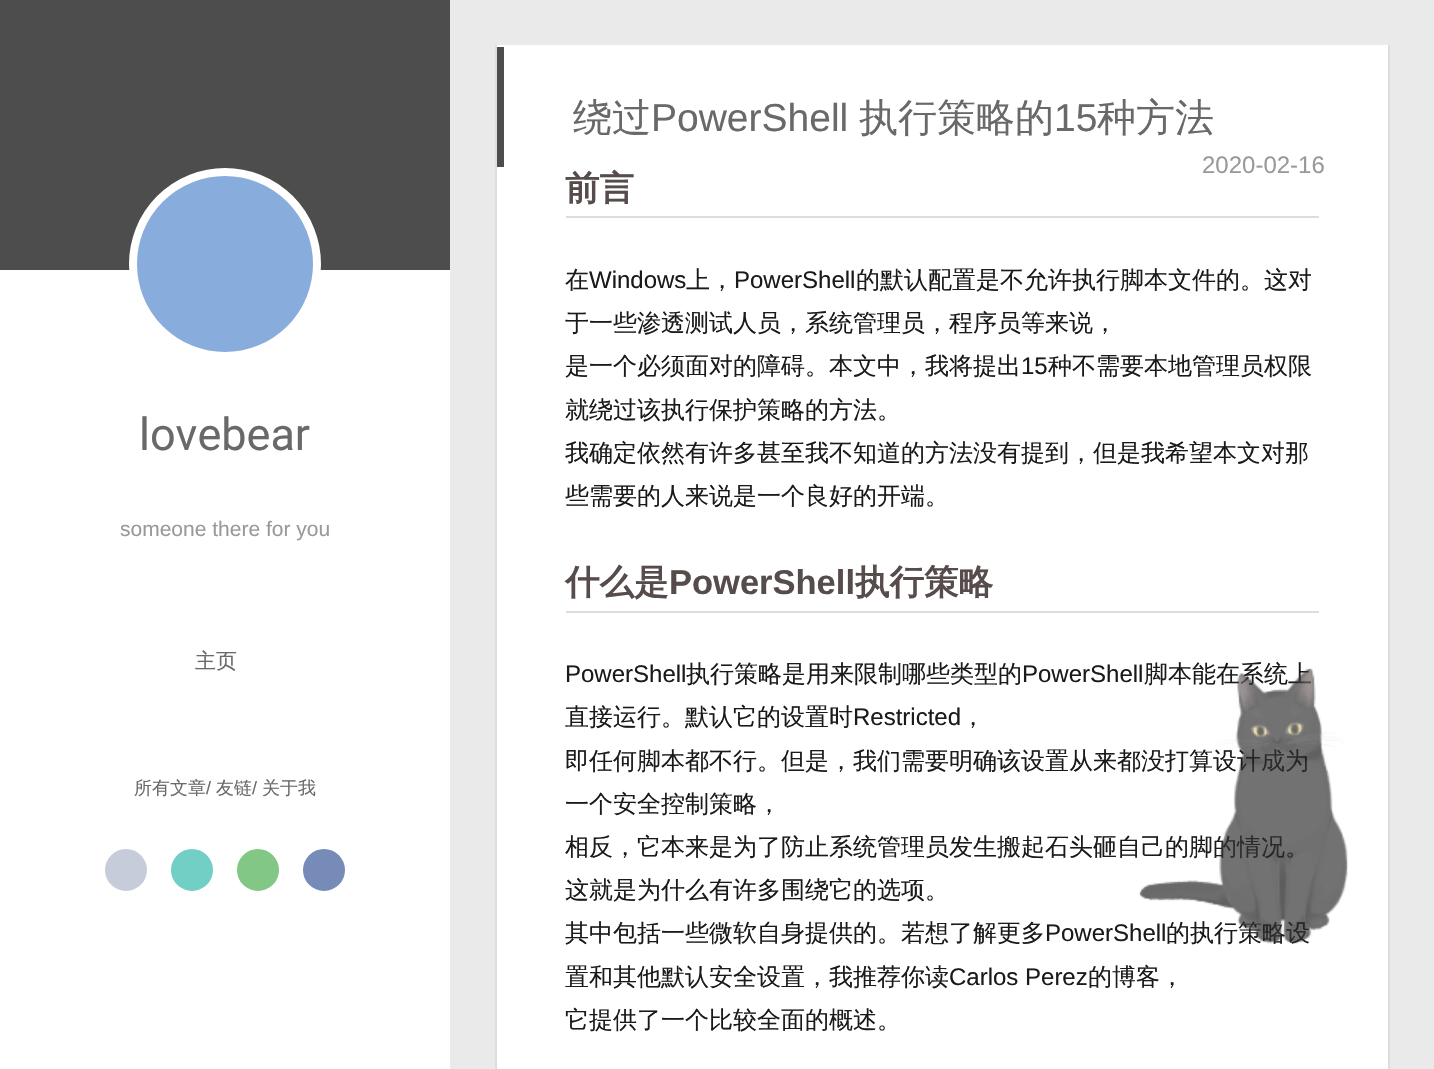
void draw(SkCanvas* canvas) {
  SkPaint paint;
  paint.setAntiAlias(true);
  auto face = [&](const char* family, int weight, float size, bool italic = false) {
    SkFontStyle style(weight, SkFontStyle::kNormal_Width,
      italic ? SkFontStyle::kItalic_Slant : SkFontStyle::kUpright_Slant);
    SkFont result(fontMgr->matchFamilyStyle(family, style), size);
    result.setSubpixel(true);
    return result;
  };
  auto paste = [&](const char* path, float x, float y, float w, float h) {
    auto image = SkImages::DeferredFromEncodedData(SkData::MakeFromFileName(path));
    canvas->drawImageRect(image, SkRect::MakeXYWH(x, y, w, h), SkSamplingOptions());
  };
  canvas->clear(0xffeaeaea);
  paint.setColor(0xffffffff);
  canvas->drawRect(SkRect::MakeXYWH(0, 270, 450, 799), paint);
  paint.setColor(0xff4d4d4d);
  canvas->drawRect(SkRect::MakeXYWH(0, 0, 450, 270), paint);
  paint.setColor(0xff88acdb);
  canvas->drawCircle(225, 264, 92, paint);
  paint.setStroke(true);
  paint.setStrokeWidth(8);
  paint.setColor(0xffffffff);
  canvas->drawCircle(225, 264, 92, paint);
  paint.setStroke(false);
  paint.setColor(0xffc7ccda);
  canvas->drawCircle(126, 870, 20, paint);
  paint.setStroke(true);
  paint.setStrokeWidth(2);
  canvas->drawCircle(126, 870, 20, paint);
  paint.setStroke(false);
  paint.setColor(0xff71cfc6);
  canvas->drawCircle(192, 870, 20, paint);
  paint.setStroke(true);
  canvas->drawCircle(192, 870, 20, paint);
  paint.setStroke(false);
  paint.setColor(0xff82c785);
  canvas->drawCircle(258, 870, 20, paint);
  paint.setStroke(true);
  canvas->drawCircle(258, 870, 20, paint);
  paint.setStroke(false);
  paint.setColor(0xff768bb7);
  canvas->drawCircle(324, 870, 20, paint);
  paint.setStroke(true);
  canvas->drawCircle(324, 870, 20, paint);
  paint.setStroke(false);
  {
    const struct { float x, y, w, h; SkColor color; } items[] = {
      {497, 45, 891, 1024, 0xffffffff},
      {1388, 45, 2, 1024, 0xffdddddd},
      {495, 45, 2, 1024, 0xffdddddd},
      {497, 47, 7, 120, 0xff4d4d4d},
      {566, 216, 753, 2, 0xffdddddd},
      {566, 611, 753, 2, 0xffdddddd},
    };
    for (auto [x, y, w, h, color] : items) {
      paint.setColor(color);
      canvas->drawRect(SkRect::MakeXYWH(x, y, w, h), paint);
    }
  }
  auto f0 = face("Roboto", 400, 45);
  paint.setColor(0xff696969);
  canvas->drawString("lovebear", 139, 450, f0, paint);
  auto f1 = face("Liberation Sans", 400, 21);
  paint.setColor(0xff999999);
  canvas->drawString("someone there for you", 120, 536, f1, paint);
  auto f2 = face("WenQuanYi Zen Hei", 500, 21);
  paint.setColor(0xff696969);
  canvas->drawString("主页", 195, 668, f2, paint);
  auto f3 = face("WenQuanYi Zen Hei", 500, 18);
  canvas->drawString("所有文章", 134, 794, f3, paint);
  auto f4 = face("Liberation Sans", 400, 18);
  canvas->drawString("/", 206, 794, f4, paint);
  canvas->drawString("友链", 216, 794, f3, paint);
  canvas->drawString("/", 252, 794, f4, paint);
  canvas->drawString("关于我", 262, 794, f3, paint);
  auto f5 = face("WenQuanYi Zen Hei", 500, 39);
  canvas->drawString("绕过", 573, 131, f5, paint);
  auto f6 = face("Liberation Sans", 400, 39);
  canvas->drawString("PowerShell", 651, 131, f6, paint);
  canvas->drawString("执行策略的", 859, 131, f5, paint);
  canvas->drawString("15", 1054, 131, f6, paint);
  canvas->drawString("种方法", 1097, 131, f5, paint);
  auto f7 = face("Liberation Sans", 400, 24);
  paint.setColor(0xff999999);
  canvas->drawString("2020-02-16", 1202, 173, f7, paint);
  auto f8 = face("WenQuanYi Zen Hei", 700, 34.5f);
  paint.setColor(0xff574c4c);
  canvas->drawString("前言", 565, 200, f8, paint);
  auto f9 = face("WenQuanYi Zen Hei", 500, 24);
  paint.setColor(0xff1a1a1a);
  canvas->drawString("在", 565, 288, f9, paint);
  canvas->drawString("Windows", 589, 288, f7, paint);
  canvas->drawString("上，", 686, 288, f9, paint);
  canvas->drawString("PowerShell", 734, 288, f7, paint);
  {
    const struct { const char* s; float x, y; } items[] = {
      {"的默认配置是不允许执行脚本文件的。这对", 856, 288},
      {"于一些渗透测试人员，系统管理员，程序员等来说，", 565, 331},
      {"是一个必须面对的障碍。本文中，我将提出", 565, 374},
    };
    for (auto [s, x, y] : items) {
      canvas->drawString(s, x, y, f9, paint);
    }
  }
  canvas->drawString("15", 1021, 374, f7, paint);
  {
    const struct { const char* s; float x, y; } items[] = {
      {"种不需要本地管理员权限", 1048, 374},
      {"就绕过该执行保护策略的方法。", 565, 418},
      {"我确定依然有许多甚至我不知道的方法没有提到，但是我希望本文对那", 565, 461},
      {"些需要的人来说是一个良好的开端。", 565, 504},
    };
    for (auto [s, x, y] : items) {
      canvas->drawString(s, x, y, f9, paint);
    }
  }
  paint.setColor(0xff574c4c);
  canvas->drawString("什么是", 565, 594, f8, paint);
  auto f10 = face("Liberation Sans", 700, 34.5f);
  canvas->drawString("PowerShell", 669, 594, f10, paint);
  canvas->drawString("执行策略", 855, 594, f8, paint);
  paint.setColor(0xff1a1a1a);
  canvas->drawString("PowerShell", 565, 682, f7, paint);
  canvas->drawString("执行策略是用来限制哪些类型的", 686, 682, f9, paint);
  canvas->drawString("PowerShell", 1022, 682, f7, paint);
  canvas->drawString("脚本能在系统上", 1144, 682, f9, paint);
  canvas->drawString("直接运行。默认它的设置时", 565, 725, f9, paint);
  canvas->drawString("Restricted", 853, 725, f7, paint);
  {
    const struct { const char* s; float x, y; } items[] = {
      {"，", 961, 725},
      {"即任何脚本都不行。但是，我们需要明确该设置从来都没打算设计成为", 565, 769},
      {"一个安全控制策略，", 565, 812},
      {"相反，它本来是为了防止系统管理员发生搬起石头砸自己的脚的情况。", 565, 855},
      {"这就是为什么有许多围绕它的选项。", 565, 898},
      {"其中包括一些微软自身提供的。若想了解更多", 565, 941},
    };
    for (auto [s, x, y] : items) {
      canvas->drawString(s, x, y, f9, paint);
    }
  }
  canvas->drawString("PowerShell", 1045, 941, f7, paint);
  canvas->drawString("的执行策略设", 1166, 941, f9, paint);
  canvas->drawString("置和其他默认安全设置，我推荐你读", 565, 985, f9, paint);
  canvas->drawString("Carlos Perez", 949, 985, f7, paint);
  canvas->drawString("的博客，", 1088, 985, f9, paint);
  canvas->drawString("它提供了一个比较全面的概述。", 565, 1028, f9, paint);
  paste("img/1.png", 1139, 668, 209, 276);
}
